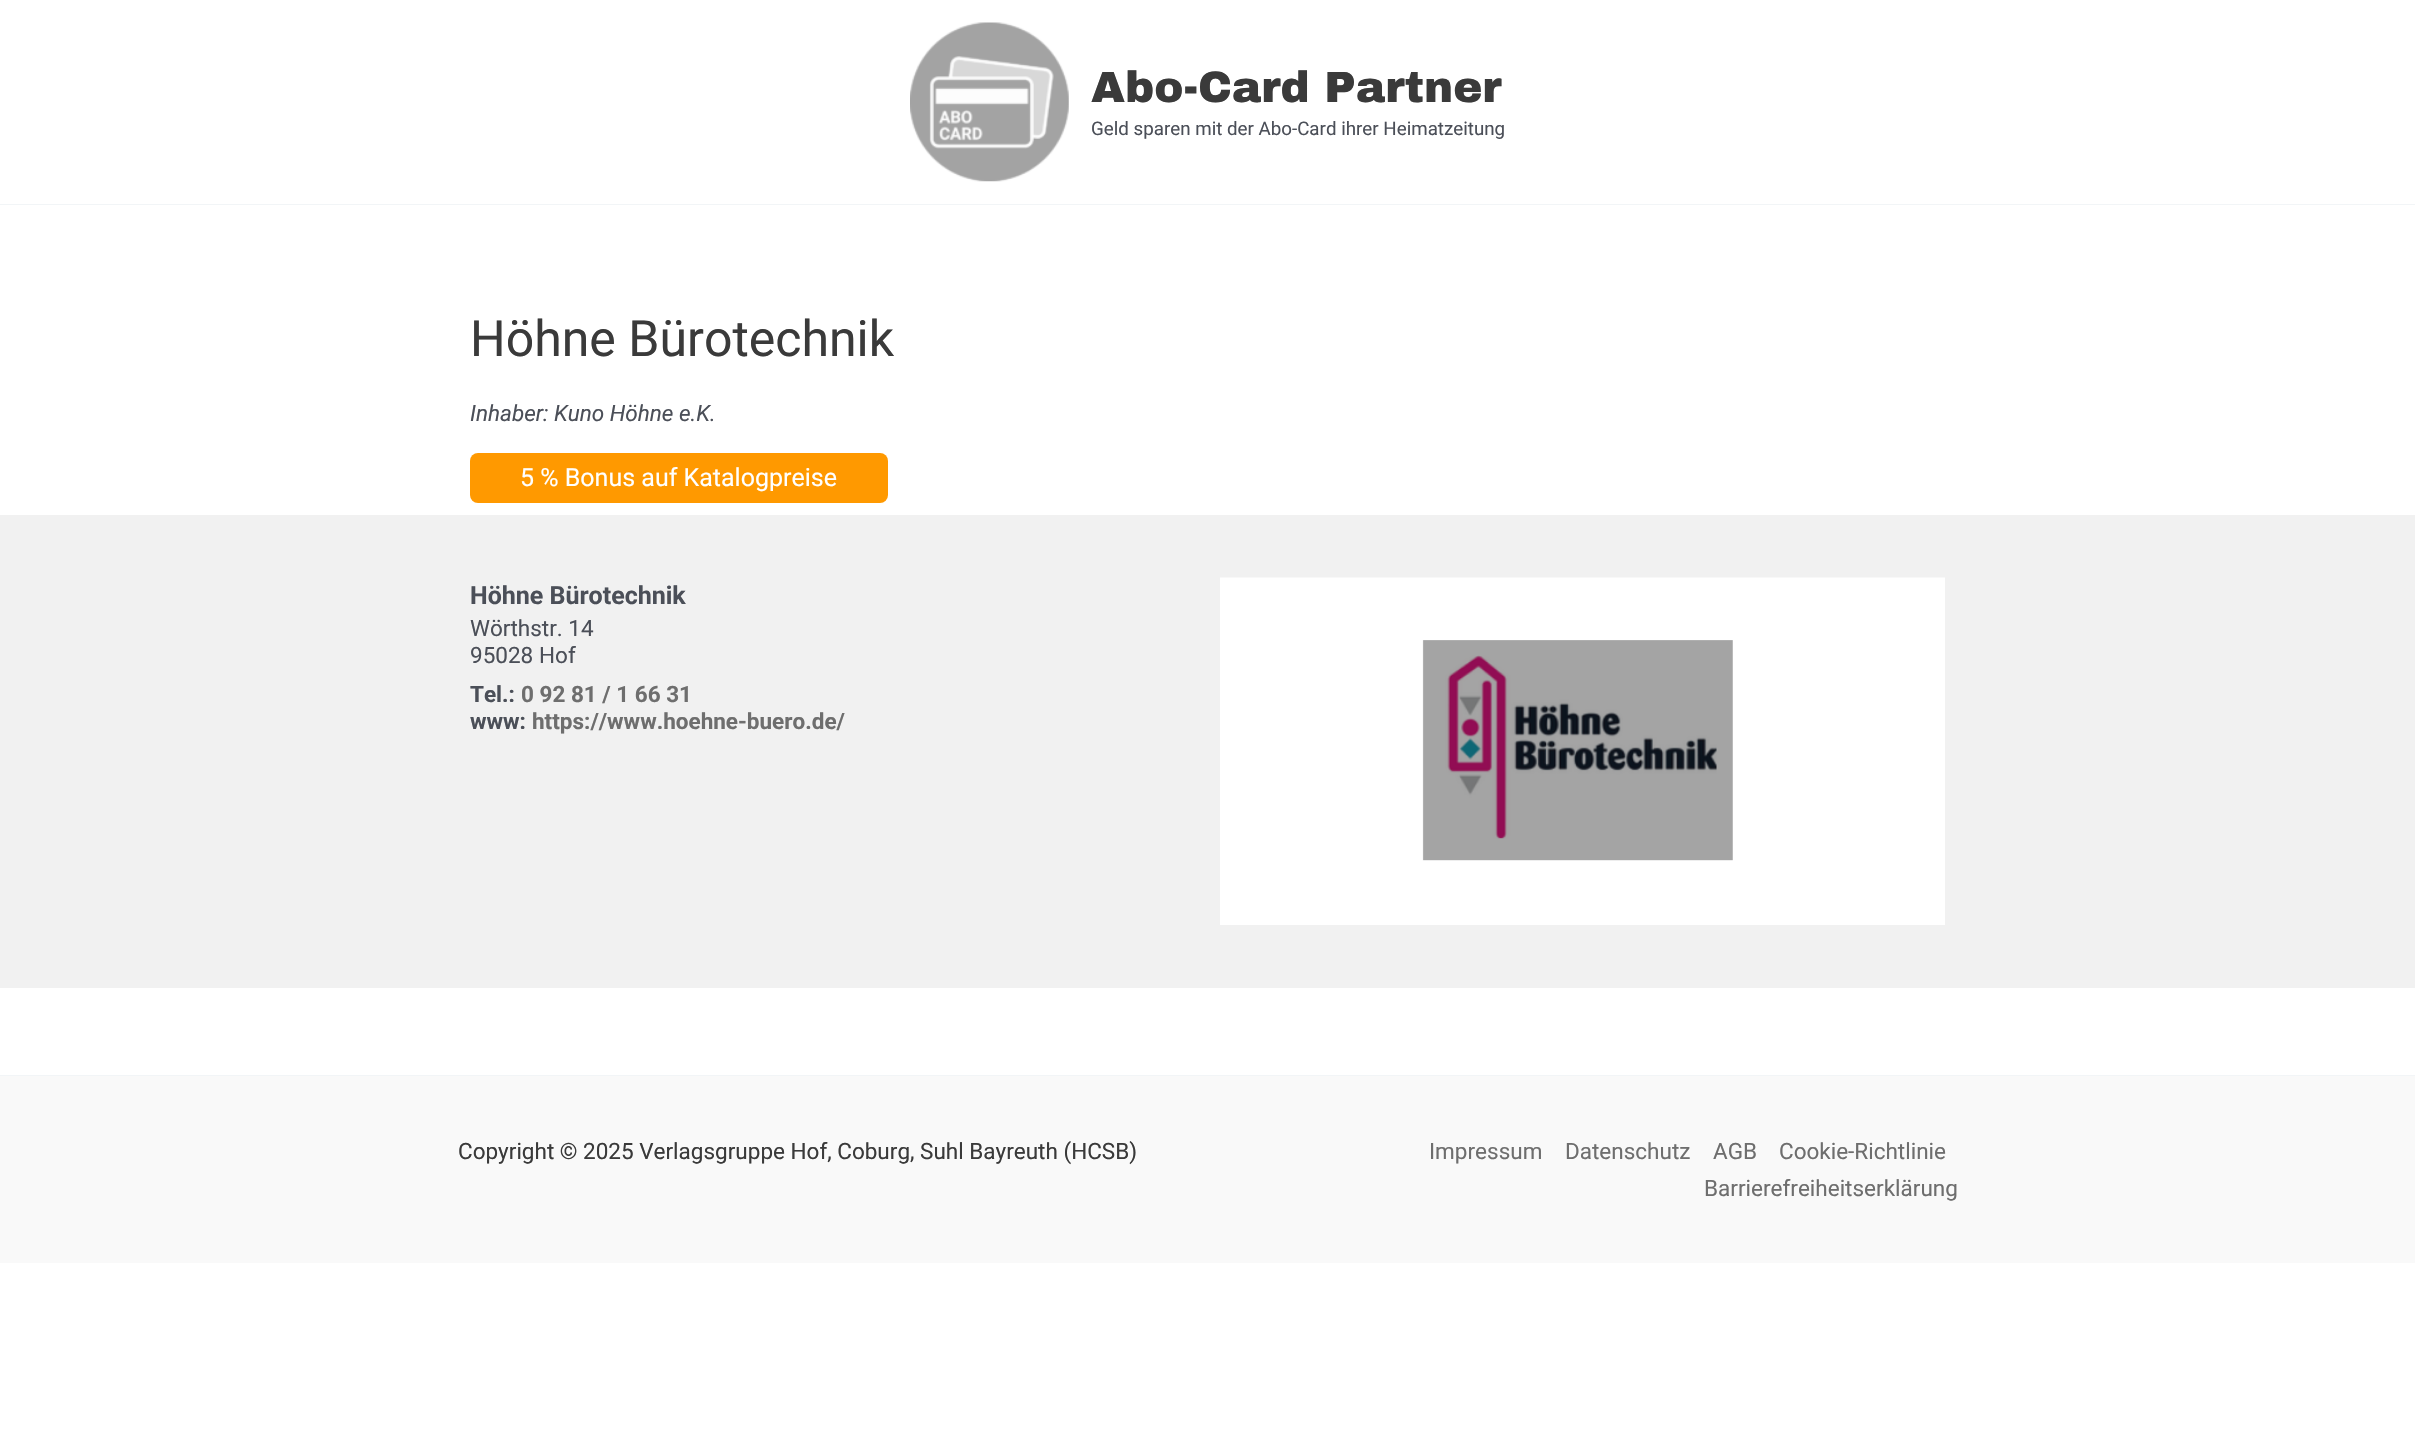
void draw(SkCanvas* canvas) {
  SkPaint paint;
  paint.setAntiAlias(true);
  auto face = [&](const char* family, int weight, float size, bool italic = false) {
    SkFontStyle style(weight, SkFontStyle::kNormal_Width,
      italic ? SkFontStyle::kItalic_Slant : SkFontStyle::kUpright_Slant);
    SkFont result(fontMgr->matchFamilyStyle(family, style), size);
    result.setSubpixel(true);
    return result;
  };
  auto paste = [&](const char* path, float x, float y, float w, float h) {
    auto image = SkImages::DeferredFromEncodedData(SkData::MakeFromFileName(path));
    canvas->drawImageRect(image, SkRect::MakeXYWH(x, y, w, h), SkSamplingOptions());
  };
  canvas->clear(0xffffffff);
  paint.setColor(0xfff2f5f7);
  canvas->drawRect(SkRect::MakeXYWH(0, 204, 2415, 1), paint);
  paste("img/1.png", 910, 22, 159, 160);
  paint.setColor(0xffff9900);
  canvas->drawRoundRect(SkRect::MakeXYWH(470, 453, 418, 50), 8, 8, paint);
  paint.setColor(0xfff1f1f1);
  canvas->drawRect(SkRect::MakeXYWH(0, 515, 2415, 473), paint);
  paste("img/2.png", 1220, 577, 725, 348);
  paint.setColor(0xfff9f9f9);
  canvas->drawRect(SkRect::MakeXYWH(0, 1076, 2415, 187), paint);
  paint.setColor(0xfff2f5f7);
  canvas->drawRect(SkRect::MakeXYWH(0, 1075, 2415, 1), paint);
  auto f0 = face("Archivo Black", 400, 43.75f);
  paint.setColor(0xff3a3a3a);
  canvas->drawString("Abo-Card Partner", 1091, 102, f0, paint);
  auto f1 = face("Roboto", 400, 18.75f);
  paint.setColor(0xff4b4f58);
  canvas->drawString("Geld sparen mit der Abo-Card ihrer Heimatzeitung", 1091, 135, f1, paint);
  auto f2 = face("Roboto", 400, 50);
  paint.setColor(0xff3a3a3a);
  canvas->drawString("Höhne Bürotechnik", 470, 356, f2, paint);
  auto f3 = face("Roboto", 400, 22.5f, true);
  paint.setColor(0xff4b4f58);
  canvas->drawString("Inhaber: Kuno Höhne e.K.", 470, 421, f3, paint);
  auto f4 = face("Roboto", 400, 25);
  paint.setColor(0xffffffff);
  canvas->drawString("5 % Bonus auf Katalogpreise", 520, 486, f4, paint);
  auto f5 = face("Roboto", 700, 25);
  paint.setColor(0xff4b4f58);
  canvas->drawString("Höhne Bürotechnik", 470, 604, f5, paint);
  auto f6 = face("Roboto", 400, 22.5f);
  {
    const struct { const char* s; float x, y; } items[] = {
      {"Wörthstr. 14", 470, 636},
      {"95028", 470, 663},
      {"Hof", 539, 663},
    };
    for (auto [s, x, y] : items) {
      canvas->drawString(s, x, y, f6, paint);
    }
  }
  auto f7 = face("Roboto", 700, 22.5f);
  canvas->drawString("Tel.:", 470, 702, f7, paint);
  paint.setColor(0xff6e6e6e);
  canvas->drawString("0 92 81 / 1 66 31", 521, 702, f7, paint);
  paint.setColor(0xff4b4f58);
  canvas->drawString("www:", 470, 729, f7, paint);
  paint.setColor(0xff6e6e6e);
  canvas->drawString("https://www.hoehne-buero.de/", 532, 729, f7, paint);
  paint.setColor(0xff3a3a3a);
  canvas->drawString("Copyright © 2025 Verlagsgruppe Hof, Coburg, Suhl Bayreuth (HCSB)", 458, 1159, f6, paint);
  paint.setColor(0xff6e6e6e);
  {
    const struct { const char* s; float x, y; } items[] = {
      {"Impressum", 1429, 1159},
      {"Datenschutz", 1565, 1159},
      {"AGB", 1713, 1159},
      {"Cookie-Richtlinie", 1779, 1159},
      {"Barrierefreiheitserklärung", 1704, 1196},
    };
    for (auto [s, x, y] : items) {
      canvas->drawString(s, x, y, f6, paint);
    }
  }
}
